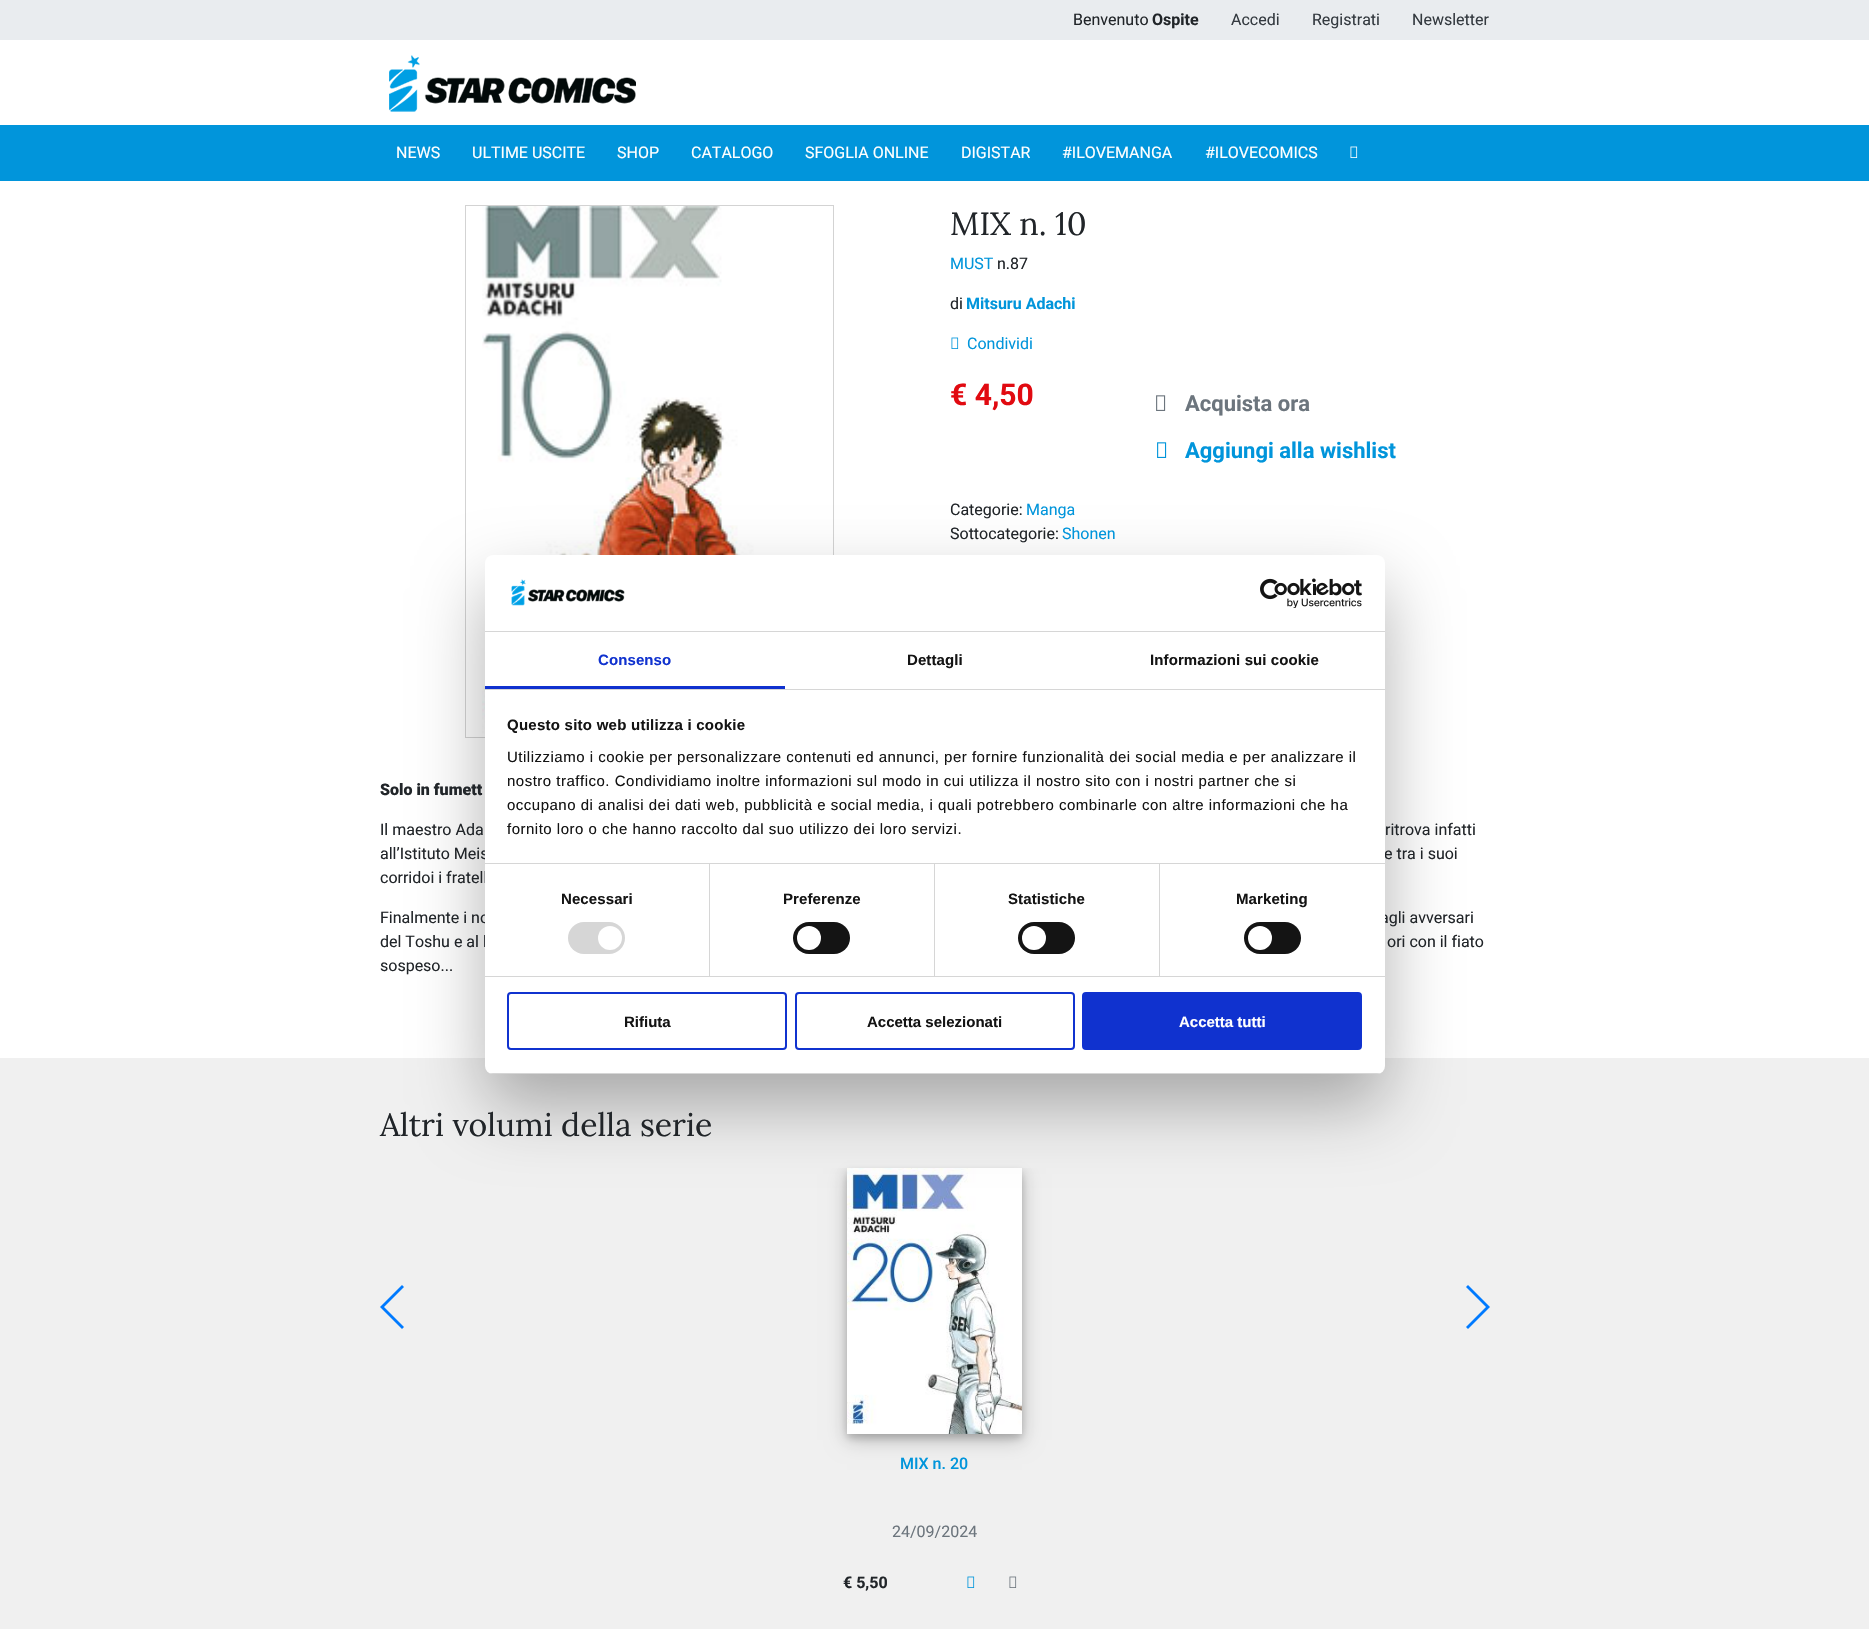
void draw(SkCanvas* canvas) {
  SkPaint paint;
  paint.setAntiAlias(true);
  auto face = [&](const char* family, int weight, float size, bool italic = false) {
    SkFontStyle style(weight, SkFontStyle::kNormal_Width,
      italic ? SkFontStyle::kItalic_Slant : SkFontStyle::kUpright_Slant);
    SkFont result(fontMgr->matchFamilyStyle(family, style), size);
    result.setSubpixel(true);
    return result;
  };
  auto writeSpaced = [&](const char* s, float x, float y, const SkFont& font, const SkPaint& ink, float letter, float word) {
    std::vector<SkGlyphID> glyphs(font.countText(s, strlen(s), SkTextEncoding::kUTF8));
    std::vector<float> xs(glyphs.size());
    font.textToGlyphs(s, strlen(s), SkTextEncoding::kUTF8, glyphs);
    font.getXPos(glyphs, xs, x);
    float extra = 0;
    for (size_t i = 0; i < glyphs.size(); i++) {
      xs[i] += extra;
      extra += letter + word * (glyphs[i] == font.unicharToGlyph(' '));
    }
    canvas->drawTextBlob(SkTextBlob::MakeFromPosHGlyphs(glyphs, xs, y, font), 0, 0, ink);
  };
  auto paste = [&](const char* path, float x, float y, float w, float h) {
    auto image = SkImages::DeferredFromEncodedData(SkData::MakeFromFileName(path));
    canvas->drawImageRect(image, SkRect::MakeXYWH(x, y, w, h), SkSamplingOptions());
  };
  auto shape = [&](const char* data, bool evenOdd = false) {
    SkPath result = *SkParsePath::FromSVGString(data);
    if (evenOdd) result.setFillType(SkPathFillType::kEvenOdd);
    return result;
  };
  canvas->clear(0xffffffff);
  paint.setColor(0xffe9ecef);
  canvas->drawRect(SkRect::MakeXYWH(0, 0, 1869, 40), paint);
  paste("img/1.png", 389, 55, 247, 57);
  paint.setColor(0xff0195db);
  canvas->drawRect(SkRect::MakeXYWH(0, 125, 1869, 56), paint);
  paste("img/2.png", 1350, 146, 8, 12);
  paint.setStroke(true);
  paint.setStrokeWidth(1);
  paint.setColor(0xffd3d3d3);
  canvas->drawRect(SkRect::MakeXYWH(465.5f, 205.5f, 368, 532), paint);
  paste("img/3.png", 482, 206, 351, 531);
  paste("img/4.png", 951, 337, 8, 12);
  paste("img/5.png", 1156, 395, 10, 16);
  paste("img/6.png", 1157, 442, 10, 16);
  paint.setStroke(false);
  paint.setColor(0xfff0f0f0);
  canvas->drawRect(SkRect::MakeXYWH(0, 1058, 1869, 571), paint);
  paint.setColor(0xff007aff);
  canvas->drawPath(shape("M380 1307L402 1285L404 1287L384 1307L404 1327L402 1329Z"), paint);
  canvas->drawPath(shape("M1490 1307L1468 1329L1466 1327L1486 1307L1466 1287L1468 1285Z"), paint);
  canvas->save();
  canvas->clipRect(SkRect::MakeXYWH(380, 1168, 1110, 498));
  paint.setColor(0x33000000);
  paint.setMaskFilter(SkMaskFilter::MakeBlur(kNormal_SkBlurStyle, 10));
  canvas->drawRect(SkRect::MakeXYWH(847, 1174, 175, 266), paint);
  paint.setMaskFilter(nullptr);
  canvas->restore();
  paint.setMaskFilter(SkMaskFilter::MakeBlur(kNormal_SkBlurStyle, 4));
  canvas->drawRect(SkRect::MakeXYWH(847, 1172, 175, 266), paint);
  paint.setMaskFilter(nullptr);
  paste("img/7.png", 847, 1168, 175, 266);
  paste("img/8.png", 967, 1576, 8, 12);
  paste("img/9.png", 1009, 1576, 8, 12);
  paint.setColor(0x4d000000);
  paint.setMaskFilter(SkMaskFilter::MakeBlur(kNormal_SkBlurStyle, 34));
  canvas->drawRoundRect(SkRect::MakeXYWH(485, 587, 900, 519), 8, 8, paint);
  paint.setMaskFilter(nullptr);
  auto f0 = face("Roboto", 400, 16);
  paint.setColor(0xff212529);
  canvas->drawString("Benvenuto", 1073, 25, f0, paint);
  auto f1 = face("Roboto", 700, 16);
  canvas->drawString("Ospite", 1152, 25, f1, paint);
  paint.setColor(0xff343a40);
  {
    const struct { const char* s; float x, y; } items[] = {
      {"Accedi", 1231, 25},
      {"Registrati", 1312, 25},
      {"Newsletter", 1412, 25},
    };
    for (auto [s, x, y] : items) {
      canvas->drawString(s, x, y, f0, paint);
    }
  }
  paint.setColor(0xffffffff);
  {
    const struct { const char* s; float x, y; } items[] = {
      {"NEWS", 396, 158},
      {"ULTIME USCITE", 472, 158},
      {"SHOP", 617, 158},
      {"CATALOGO", 691, 158},
      {"SFOGLIA ONLINE", 805, 158},
      {"DIGISTAR", 961, 158},
      {"#ILOVEMANGA", 1062, 158},
      {"#ILOVECOMICS", 1205, 158},
    };
    for (auto [s, x, y] : items) {
      canvas->drawString(s, x, y, f0, paint);
    }
  }
  auto f2 = face("Lora", 400, 32);
  paint.setColor(0xff212529);
  canvas->drawString("MIX n. 10", 950, 235, f2, paint);
  paint.setColor(0xff0195db);
  canvas->drawString("MUST", 950, 269, f0, paint);
  paint.setColor(0xff212529);
  canvas->drawString("n.87", 997, 269, f0, paint);
  canvas->drawString("di", 950, 309, f0, paint);
  paint.setColor(0xff0195db);
  canvas->drawString("Mitsuru Adachi", 966, 309, f1, paint);
  canvas->drawString("Condividi", 967, 349, f0, paint);
  auto f3 = face("Roboto", 700, 30);
  paint.setColor(0xffe10a11);
  canvas->drawString("€ 4,50", 950, 405, f3, paint);
  auto f4 = face("Roboto", 700, 22);
  paint.setColor(0xff6c757d);
  canvas->drawString("Acquista ora", 1185, 411, f4, paint);
  paint.setColor(0xff0195db);
  canvas->drawString("Aggiungi alla wishlist", 1185, 458, f4, paint);
  paint.setColor(0xff212529);
  canvas->drawString("Categorie:", 950, 515, f0, paint);
  paint.setColor(0xff0195db);
  canvas->drawString("Manga", 1026, 515, f0, paint);
  paint.setColor(0xff212529);
  canvas->drawString("Sottocategorie:", 950, 539, f0, paint);
  paint.setColor(0xff0195db);
  canvas->drawString("Shonen", 1062, 539, f0, paint);
  auto f5 = face("Roboto", 900, 16);
  paint.setColor(0xff212529);
  canvas->drawString("Solo in fumett", 380, 795, f5, paint);
  {
    const struct { const char* s; float x, y; } items[] = {
      {"Il maestro Ada", 380, 835},
      {"ritrova infatti", 1385, 835},
      {"all’Istituto Meis", 380, 859},
      {"e tra i suoi", 1384, 859},
      {"corridoi i fratell", 380, 883},
      {"Finalmente i no", 380, 923},
      {"agli avversari", 1380, 923},
      {"del Toshu e al l", 380, 947},
      {"ori con il fiato", 1387, 947},
      {"sospeso...", 380, 971},
    };
    for (auto [s, x, y] : items) {
      canvas->drawString(s, x, y, f0, paint);
    }
  }
  canvas->drawString("Altri volumi della serie", 380, 1136, f2, paint);
  auto f6 = face("Roboto", 500, 16);
  paint.setColor(0xff0195db);
  canvas->drawString("MIX n. 20", 900, 1469, f6, paint);
  paint.setColor(0xff6c757d);
  canvas->drawString("24/09/2024", 892, 1537, f0, paint);
  paint.setColor(0xff212529);
  canvas->drawString("€ 5,50", 843, 1588, f1, paint);
  paint.setColor(0xffffffff);
  canvas->drawRoundRect(SkRect::MakeXYWH(485, 555, 900, 519), 8, 8, paint);
  paint.setColor(0xffd6d6d6);
  canvas->drawRect(SkRect::MakeXYWH(485, 631, 900, 1), paint);
  paste("img/10.png", 511, 579, 114, 27);
  paste("img/11.png", 1260, 578, 102, 30);
  canvas->drawRect(SkRect::MakeXYWH(485, 689, 900, 1), paint);
  paint.setColor(0xff1032cf);
  canvas->drawRect(SkRect::MakeXYWH(485, 686, 300, 3), paint);
  auto f7 = face("Liberation Sans", 700, 15);
  writeSpaced("Consenso", 598, 665, f7, paint, 0.1f, 0);
  paint.setColor(0xff141414);
  writeSpaced("Dettagli", 907, 665, f7, paint, 0.1f, 0);
  writeSpaced("Informazioni sui cookie", 1150, 665, f7, paint, 0.1f, 0);
  paint.setColor(0xffd6d6d6);
  canvas->drawRect(SkRect::MakeXYWH(485, 863, 900, 1), paint);
  paint.setColor(0xff141414);
  writeSpaced("Questo sito web utilizza i cookie", 507, 730, f7, paint, 0.25f, 0);
  auto f8 = face("Liberation Sans", 400, 15);
  {
    const struct { const char* s; float x, y; } items[] = {
      {"Utilizziamo i cookie per personalizzare contenuti ed annunci, per fornire funzionalità dei social media e per analizzare il", 507, 762},
      {"nostro traffico. Condividiamo inoltre informazioni sul modo in cui utilizza il nostro sito con i nostri partner che si", 507, 786},
      {"occupano di analisi dei dati web, pubblicità e social media, i quali potrebbero combinarle con altre informazioni che ha", 507, 810},
      {"fornito loro o che hanno raccolto dal suo utilizzo dei loro servizi.", 507, 834},
    };
    for (auto [s, x, y] : items) {
      writeSpaced(s, x, y, f8, paint, 0.5f, 0);
    }
  }
  paint.setColor(0xffd6d6d6);
  canvas->drawRect(SkRect::MakeXYWH(485, 976, 900, 1), paint);
  canvas->drawRect(SkRect::MakeXYWH(709, 864, 1, 112), paint);
  paint.setColor(0xff141414);
  writeSpaced("Necessari", 561, 904, f7, paint, 0.1f, 0);
  paint.setColor(0xffd6d6d6);
  canvas->drawRoundRect(SkRect::MakeXYWH(568, 922, 57, 32), 16, 16, paint);
  paint.setColor(0xffffffff);
  canvas->drawCircle(610, 938, 12, paint);
  paint.setColor(0xffd6d6d6);
  canvas->drawRect(SkRect::MakeXYWH(934, 864, 1, 112), paint);
  paint.setColor(0xff141414);
  writeSpaced("Preferenze", 783, 904, f7, paint, 0.1f, 0);
  canvas->drawRoundRect(SkRect::MakeXYWH(793, 922, 57, 32), 16, 16, paint);
  paint.setColor(0xffffffff);
  canvas->drawCircle(809, 938, 12, paint);
  paint.setColor(0xffd6d6d6);
  canvas->drawRect(SkRect::MakeXYWH(1159, 864, 1, 112), paint);
  paint.setColor(0xff141414);
  writeSpaced("Statistiche", 1008, 904, f7, paint, 0.1f, 0);
  canvas->drawRoundRect(SkRect::MakeXYWH(1018, 922, 57, 32), 16, 16, paint);
  paint.setColor(0xffffffff);
  canvas->drawCircle(1034, 938, 12, paint);
  paint.setColor(0xff141414);
  writeSpaced("Marketing", 1236, 904, f7, paint, 0.1f, 0);
  canvas->drawRoundRect(SkRect::MakeXYWH(1244, 922, 57, 32), 16, 16, paint);
  paint.setColor(0xffffffff);
  canvas->drawCircle(1260, 938, 12, paint);
  canvas->save();
  canvas->clipPath(shape("M493 555H1377C1381.5 555 1385 558.5 1385 563V1066C1385 1070.5 1381.5 1074 1377 1074H493C488.5 1074 485 1070.5 485 1066V563C485 558.5 488.5 555 493 555Z"), true);
  paint.setColor(0xffd6d6d6);
  canvas->drawRect(SkRect::MakeXYWH(485, 1073, 900, 1), paint);
  canvas->restore();
  paint.setStroke(true);
  paint.setStrokeWidth(2);
  paint.setColor(0xff1032cf);
  canvas->drawRoundRect(SkRect::MakeXYWH(508, 993, 278, 56), 3, 3, paint);
  paint.setStroke(false);
  paint.setColor(0xff141414);
  canvas->drawString("Rifiuta", 624, 1027, f7, paint);
  paint.setStroke(true);
  paint.setColor(0xff1032cf);
  canvas->drawRoundRect(SkRect::MakeXYWH(796, 993, 278, 56), 3, 3, paint);
  paint.setStroke(false);
  paint.setColor(0xff141414);
  canvas->drawString("Accetta selezionati", 867, 1027, f7, paint);
  paint.setColor(0xff1032cf);
  canvas->drawRoundRect(SkRect::MakeXYWH(1083, 993, 278, 56), 3, 3, paint);
  paint.setStroke(true);
  canvas->drawRoundRect(SkRect::MakeXYWH(1083, 993, 278, 56), 3, 3, paint);
  paint.setStroke(false);
  paint.setColor(0xffffffff);
  canvas->drawString("Accetta tutti", 1179, 1027, f7, paint);
}
